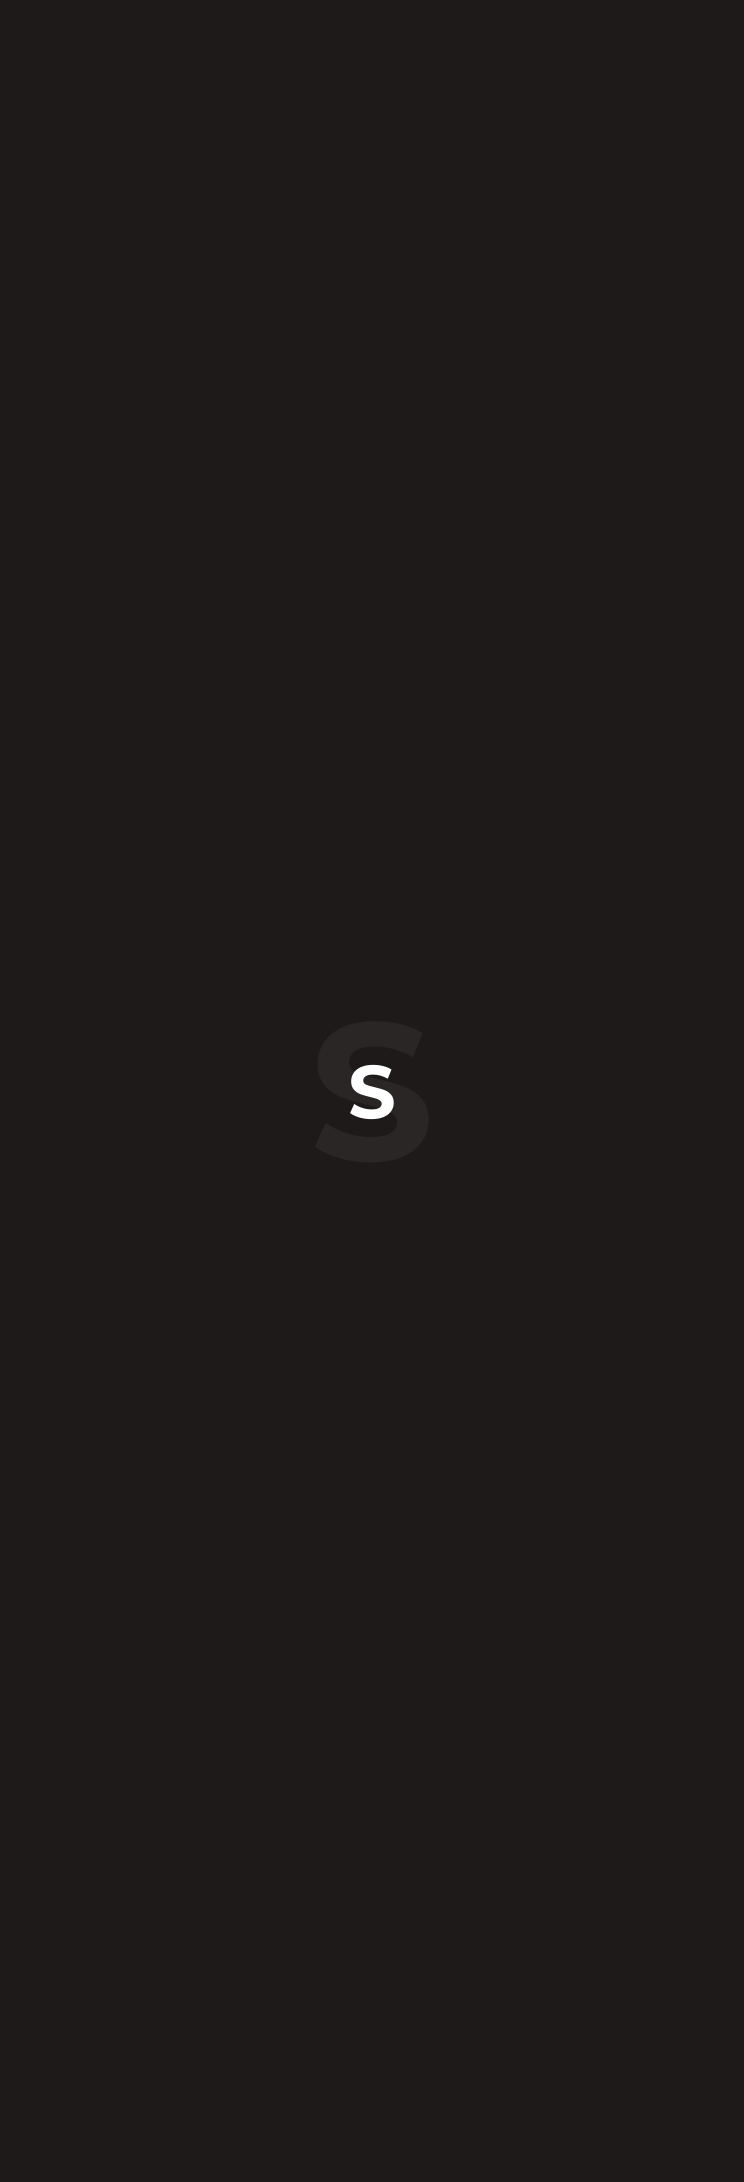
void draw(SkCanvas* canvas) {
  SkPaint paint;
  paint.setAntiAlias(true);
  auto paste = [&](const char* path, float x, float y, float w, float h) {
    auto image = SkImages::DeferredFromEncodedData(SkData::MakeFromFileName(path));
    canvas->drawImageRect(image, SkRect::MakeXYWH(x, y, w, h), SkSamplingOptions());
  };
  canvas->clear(0xff1e1a1a);
  paste("img/2.png", 350, 1064, 44, 56);
  paste("img/1.png", 315, 1021, 114, 142);
}
